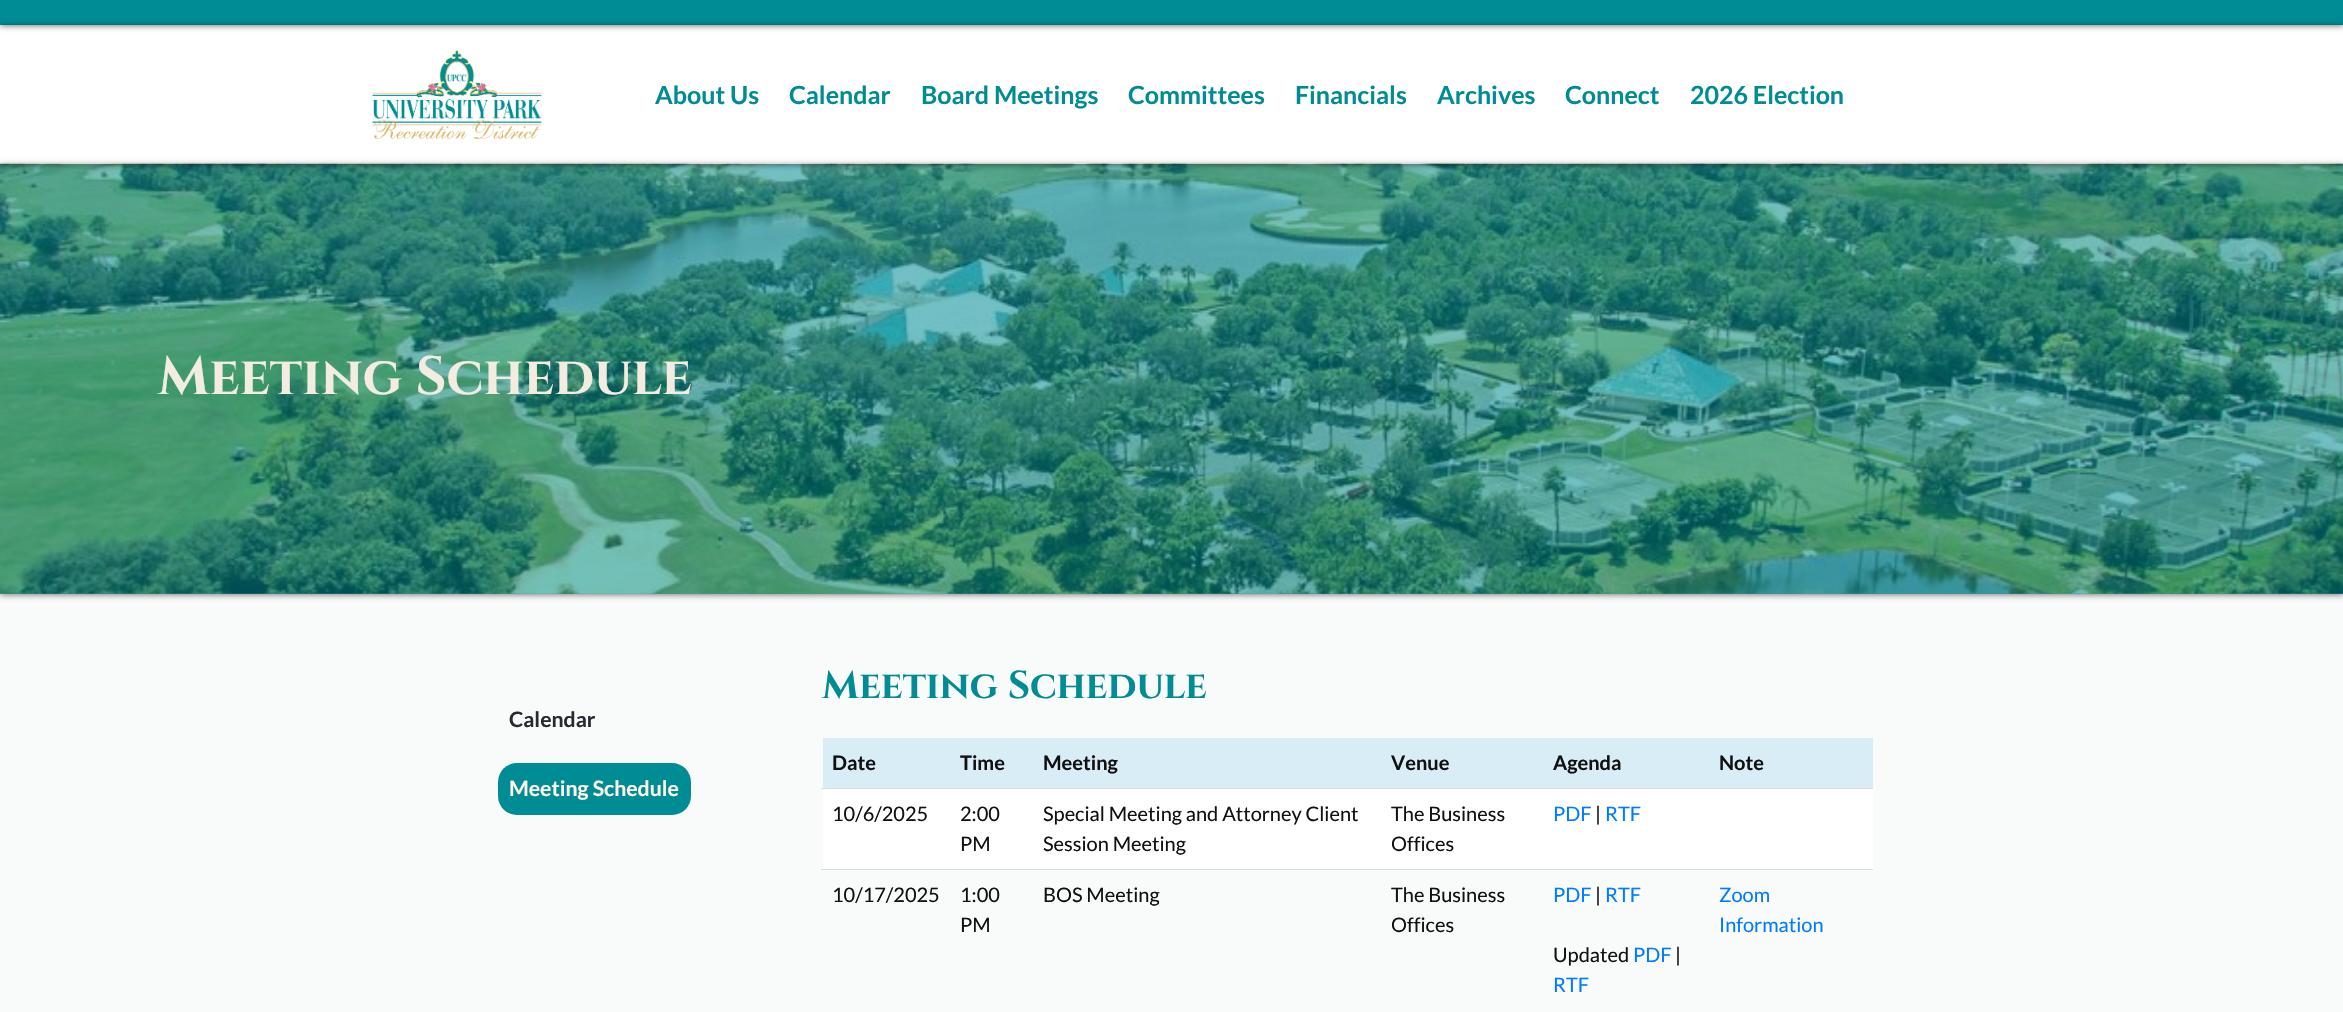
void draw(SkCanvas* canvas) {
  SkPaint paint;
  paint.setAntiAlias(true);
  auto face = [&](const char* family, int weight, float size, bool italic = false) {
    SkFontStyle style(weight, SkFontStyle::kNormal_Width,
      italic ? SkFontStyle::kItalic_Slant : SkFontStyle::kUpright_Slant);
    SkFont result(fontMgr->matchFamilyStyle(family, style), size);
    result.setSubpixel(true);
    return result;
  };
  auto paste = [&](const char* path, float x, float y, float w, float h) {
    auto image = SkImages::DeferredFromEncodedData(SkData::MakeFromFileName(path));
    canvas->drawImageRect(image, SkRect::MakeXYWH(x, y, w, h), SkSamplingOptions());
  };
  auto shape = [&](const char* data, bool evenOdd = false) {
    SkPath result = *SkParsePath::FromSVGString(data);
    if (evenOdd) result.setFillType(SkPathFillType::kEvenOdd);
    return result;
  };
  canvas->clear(0xffffffff);
  paint.setColor(0x80000000);
  paint.setMaskFilter(SkMaskFilter::MakeBlur(kNormal_SkBlurStyle, 3));
  canvas->drawRect(SkRect::MakeXYWH(0, 1, 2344, 25), paint);
  paint.setMaskFilter(nullptr);
  paint.setColor(0xff008c95);
  canvas->drawRect(SkRect::MakeXYWH(0, 0, 2343, 25), paint);
  paint.setColor(0xfff9fafa);
  canvas->drawRect(SkRect::MakeXYWH(0, 593, 2343, 419), paint);
  paint.setColor(0x80000000);
  paint.setMaskFilter(SkMaskFilter::MakeBlur(kNormal_SkBlurStyle, 3));
  canvas->drawRect(SkRect::MakeXYWH(0, 165, 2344, 430), paint);
  paint.setMaskFilter(nullptr);
  paste("img/2.png", 0, 163, 2343, 431);
  paint.setColor(0x8c008c95);
  canvas->drawRect(SkRect::MakeXYWH(0, 164, 2343, 430), paint);
  canvas->save();
  canvas->clipPath(shape("M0 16H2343V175H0ZM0 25H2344V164H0Z", true), true);
  paint.setColor(0x80000000);
  paint.setMaskFilter(SkMaskFilter::MakeBlur(kNormal_SkBlurStyle, 3));
  canvas->drawRect(SkRect::MakeXYWH(0, 26, 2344, 139), paint);
  paint.setMaskFilter(nullptr);
  canvas->restore();
  paste("img/1.png", 372, 50, 170, 89);
  paint.setColor(0xff008c95);
  canvas->drawRoundRect(SkRect::MakeXYWH(498, 763, 193, 52), 19, 19, paint);
  {
    const struct { float x, y, w, h; SkColor color; } items[] = {
      {823, 738, 1050, 50, 0xffd9edf7},
      {821, 788, 1052, 1, 0xffdddddd},
      {823, 789, 1050, 80, 0xffffffff},
      {821, 869, 1052, 1, 0xffdddddd},
    };
    for (auto [x, y, w, h, color] : items) {
      paint.setColor(color);
      canvas->drawRect(SkRect::MakeXYWH(x, y, w, h), paint);
    }
  }
  auto f0 = face("Lato", 700, 25);
  paint.setColor(0xff008c95);
  {
    const struct { const char* s; float x, y; } items[] = {
      {"About Us", 655, 104},
      {"Calendar", 789, 104},
      {"Board Meetings", 921, 104},
      {"Committees", 1128, 104},
      {"Financials", 1295, 104},
      {"Archives", 1437, 104},
      {"Connect", 1565, 104},
      {"2026 Election", 1690, 104},
    };
    for (auto [s, x, y] : items) {
      canvas->drawString(s, x, y, f0, paint);
    }
  }
  auto f1 = face("Cinzel", 700, 53.75f);
  paint.setColor(0xfff3ece0);
  canvas->drawString("Meeting Schedule", 158, 394, f1, paint);
  auto f2 = face("Lato", 700, 21.25f);
  paint.setColor(0xff252a35);
  canvas->drawString("Calendar", 509, 727, f2, paint);
  paint.setColor(0xfffcf5e8);
  canvas->drawString("Meeting Schedule", 509, 796, f2, paint);
  auto f3 = face("Cinzel", 700, 38.75f);
  paint.setColor(0xff008c95);
  canvas->drawString("Meeting Schedule", 822, 698, f3, paint);
  auto f4 = face("Lato", 700, 20);
  paint.setColor(0xff111111);
  {
    const struct { const char* s; float x, y; } items[] = {
      {"Date", 832, 770},
      {"Time", 960, 770},
      {"Meeting", 1043, 770},
      {"Venue", 1391, 770},
      {"Agenda", 1553, 770},
      {"Note", 1719, 770},
    };
    for (auto [s, x, y] : items) {
      canvas->drawString(s, x, y, f4, paint);
    }
  }
  auto f5 = face("Lato", 400, 20);
  {
    const struct { const char* s; float x, y; } items[] = {
      {"10/6/2025", 832, 821},
      {"2:00", 960, 821},
      {"PM", 960, 851},
      {"Special Meeting and Attorney Client", 1043, 821},
      {"Session Meeting", 1043, 851},
      {"The Business", 1391, 821},
      {"Offices", 1391, 851},
    };
    for (auto [s, x, y] : items) {
      canvas->drawString(s, x, y, f5, paint);
    }
  }
  paint.setColor(0xff007bff);
  canvas->drawString("PDF", 1553, 821, f5, paint);
  paint.setColor(0xff111111);
  canvas->drawString("|", 1595, 821, f5, paint);
  paint.setColor(0xff007bff);
  canvas->drawString("RTF", 1605, 821, f5, paint);
  paint.setColor(0xff111111);
  {
    const struct { const char* s; float x, y; } items[] = {
      {"10/17/2025", 832, 902},
      {"1:00", 960, 902},
      {"PM", 960, 932},
      {"BOS Meeting", 1043, 902},
      {"The Business", 1391, 902},
      {"Offices", 1391, 932},
    };
    for (auto [s, x, y] : items) {
      canvas->drawString(s, x, y, f5, paint);
    }
  }
  paint.setColor(0xff007bff);
  canvas->drawString("PDF", 1553, 902, f5, paint);
  paint.setColor(0xff111111);
  canvas->drawString("|", 1595, 902, f5, paint);
  paint.setColor(0xff007bff);
  canvas->drawString("RTF", 1605, 902, f5, paint);
  paint.setColor(0xff111111);
  canvas->drawString("Updated", 1553, 962, f5, paint);
  paint.setColor(0xff007bff);
  canvas->drawString("PDF", 1633, 962, f5, paint);
  paint.setColor(0xff111111);
  canvas->drawString("|", 1675, 962, f5, paint);
  paint.setColor(0xff007bff);
  {
    const struct { const char* s; float x, y; } items[] = {
      {"RTF", 1553, 992},
      {"Zoom", 1719, 902},
      {"Information", 1719, 932},
    };
    for (auto [s, x, y] : items) {
      canvas->drawString(s, x, y, f5, paint);
    }
  }
}
